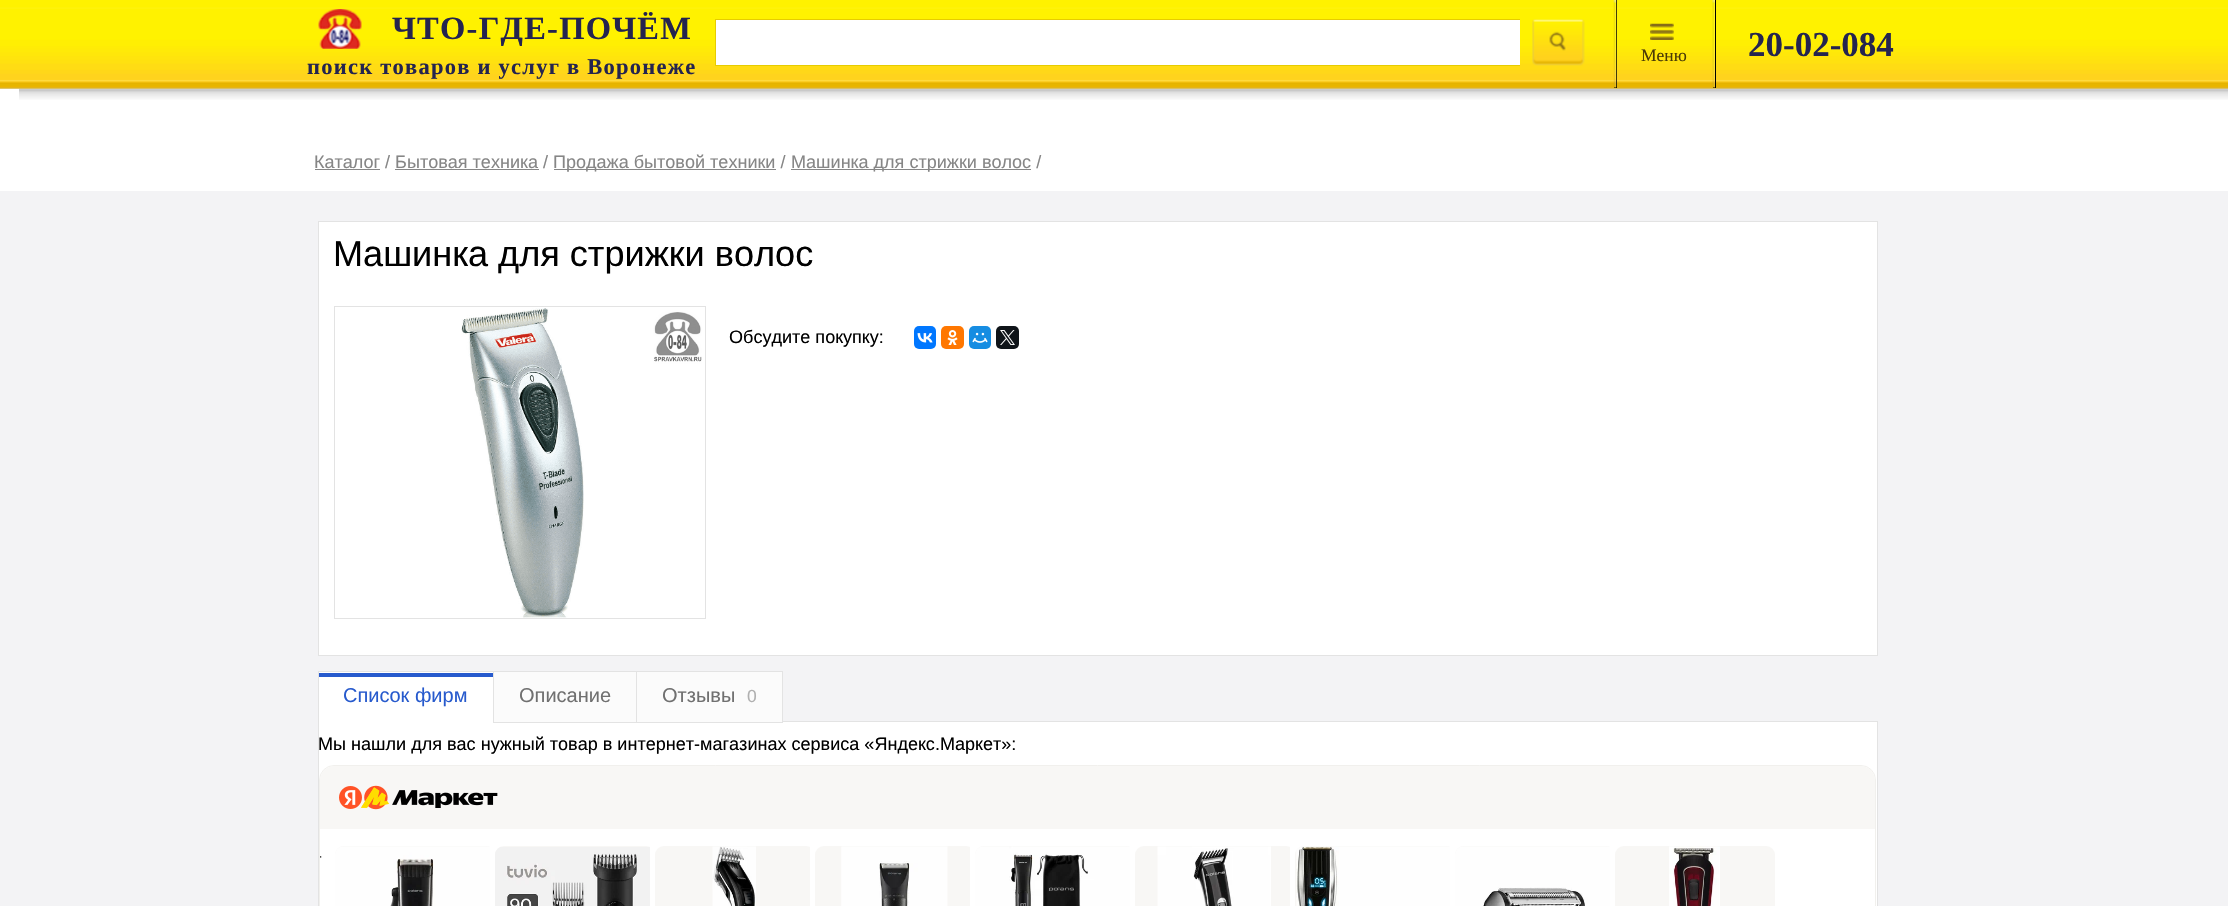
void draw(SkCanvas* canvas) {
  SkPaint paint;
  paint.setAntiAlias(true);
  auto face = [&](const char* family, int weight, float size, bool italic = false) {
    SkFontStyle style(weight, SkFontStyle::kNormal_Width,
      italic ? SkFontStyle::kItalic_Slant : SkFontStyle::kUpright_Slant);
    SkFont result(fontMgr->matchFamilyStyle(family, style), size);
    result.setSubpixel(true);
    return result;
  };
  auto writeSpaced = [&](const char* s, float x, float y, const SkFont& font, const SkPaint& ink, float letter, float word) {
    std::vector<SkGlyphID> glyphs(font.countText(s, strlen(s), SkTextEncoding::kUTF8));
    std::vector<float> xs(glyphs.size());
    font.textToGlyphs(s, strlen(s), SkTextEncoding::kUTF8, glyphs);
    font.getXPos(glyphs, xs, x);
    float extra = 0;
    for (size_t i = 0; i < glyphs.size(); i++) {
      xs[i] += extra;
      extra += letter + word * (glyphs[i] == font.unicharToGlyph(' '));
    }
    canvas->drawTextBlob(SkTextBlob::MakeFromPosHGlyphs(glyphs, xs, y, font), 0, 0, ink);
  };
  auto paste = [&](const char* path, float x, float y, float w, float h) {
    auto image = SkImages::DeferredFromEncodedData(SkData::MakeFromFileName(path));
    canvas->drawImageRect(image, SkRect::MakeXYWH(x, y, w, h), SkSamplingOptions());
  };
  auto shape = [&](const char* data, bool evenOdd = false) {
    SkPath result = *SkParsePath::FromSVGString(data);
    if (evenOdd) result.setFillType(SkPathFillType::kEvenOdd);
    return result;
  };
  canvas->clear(0xfff3f3f5);
  paint.setColor(0xffffffff);
  canvas->drawRect(SkRect::MakeXYWH(0, 88, 2228, 103), paint);
  paste("img/7.png", 19, 88, 2209, 12);
  paste("img/1.png", 0, 0, 2228, 89);
  paste("img/2.png", 318, 9, 44, 40);
  canvas->drawRect(SkRect::MakeXYWH(716, 20, 804, 45), paint);
  canvas->save();
  canvas->clipRect(SkRect::MakeXYWH(703, 0, 817, 101));
  paint.setStroke(true);
  paint.setStrokeWidth(1);
  paint.setColor(0xffe6cc00);
  canvas->drawRect(SkRect::MakeXYWH(715.5f, 19.5f, 817, 46), paint);
  canvas->restore();
  paste("img/3.png", 1532, 19, 53, 47);
  paint.setStroke(false);
  paint.setColor(0xff000000);
  canvas->drawRect(SkRect::MakeXYWH(1614, 0, 3, 88), paint);
  paste("img/4.png", 1613, 0, 4, 88);
  paste("img/5.png", 1650, 23, 24, 17);
  canvas->drawRect(SkRect::MakeXYWH(1713, 0, 3, 88), paint);
  paste("img/6.png", 1712, 0, 3, 88);
  {
    const struct { float x, y, w, h; SkColor color; } items[] = {
      {315, 169, 65, 1, 0xff868686},
      {554, 169, 222, 1, 0xff868686},
      {791, 169, 240, 1, 0xff868686},
      {395, 169, 144, 1, 0xff868686},
    };
    for (auto [x, y, w, h, color] : items) {
      paint.setColor(color);
      canvas->drawRect(SkRect::MakeXYWH(x, y, w, h), paint);
    }
  }
  paint.setColor(0xffffffff);
  canvas->drawRect(SkRect::MakeXYWH(318.5f, 221.5f, 1559, 434), paint);
  paint.setStroke(true);
  paint.setColor(0xffe3e3e3);
  canvas->drawRect(SkRect::MakeXYWH(318.5f, 221.5f, 1559, 434), paint);
  canvas->drawRect(SkRect::MakeXYWH(334.5f, 306.5f, 371, 312), paint);
  paste("img/8.png", 461, 308, 241, 310);
  paint.setStroke(false);
  paint.setColor(0xff0077ff);
  canvas->drawRoundRect(SkRect::MakeXYWH(914, 326, 22, 23), 5, 5, paint);
  paste("img/9.png", 917, 333, 16, 10);
  paint.setColor(0xffff7700);
  canvas->drawRoundRect(SkRect::MakeXYWH(941, 326, 23, 23), 5, 5, paint);
  paste("img/10.png", 947, 330, 11, 15);
  paint.setColor(0xff168de2);
  canvas->drawRoundRect(SkRect::MakeXYWH(969, 326, 22, 23), 5, 5, paint);
  paste("img/11.png", 972, 332, 16, 11);
  paint.setColor(0xff0f1419);
  canvas->drawRoundRect(SkRect::MakeXYWH(996, 326, 23, 23), 5, 5, paint);
  paste("img/12.png", 1000, 330, 15, 15);
  paint.setColor(0xffffffff);
  canvas->drawRect(SkRect::MakeXYWH(318.5f, 721.5f, 1559, 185), paint);
  paint.setStroke(true);
  paint.setColor(0xffe3e3e3);
  canvas->drawRect(SkRect::MakeXYWH(318.5f, 721.5f, 1559, 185), paint);
  paint.setStroke(false);
  paint.setColor(0xffffffff);
  canvas->drawRect(SkRect::MakeXYWH(319, 672, 174, 50), paint);
  paint.setColor(0xfffbfbfb);
  canvas->drawRect(SkRect::MakeXYWH(494, 672, 142, 50), paint);
  paint.setStroke(true);
  paint.setColor(0xffe3e3e3);
  canvas->drawRect(SkRect::MakeXYWH(493.5f, 671.5f, 144, 51), paint);
  paint.setStroke(false);
  {
    const struct { float x, y, w, h; SkColor color; } items[] = {
      {318, 671, 176, 1, 0xffe3e3e3},
      {318, 671, 1, 52, 0xffe3e3e3},
      {319, 673, 174, 4, 0xff275acd},
    };
    for (auto [x, y, w, h, color] : items) {
      paint.setColor(color);
      canvas->drawRect(SkRect::MakeXYWH(x, y, w, h), paint);
    }
  }
  paint.setColor(0xfffbfbfb);
  canvas->drawRect(SkRect::MakeXYWH(636.5f, 671.5f, 146, 51), paint);
  paint.setStroke(true);
  paint.setColor(0xffe3e3e3);
  canvas->drawRect(SkRect::MakeXYWH(636.5f, 671.5f, 146, 51), paint);
  paint.setColor(0xfff1f0ed);
  canvas->drawRoundRect(SkRect::MakeXYWH(319.5f, 765.5f, 1556, 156), 14.5f, 14.5f, paint);
  paint.setStroke(false);
  paint.setColor(0xfff8f7f5);
  canvas->drawPath(shape("M334 766H1861C1868.5 766 1875 772.5 1875 780V829H320V780C320 772.5 326.5 766 334 766Z"), paint);
  paste("img/13.png", 339, 785, 159, 25);
  paste("img/14.png", 320, 856, 2, 2);
  canvas->drawRoundRect(SkRect::MakeXYWH(335, 846, 160, 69), 9, 9, paint);
  paste("img/15.png", 335, 846, 155, 60);
  paint.setColor(0xffffffff);
  canvas->drawRect(SkRect::MakeXYWH(490, 847, 5, 59), paint);
  paint.setColor(0xfff8f7f5);
  canvas->drawRoundRect(SkRect::MakeXYWH(495, 846, 160, 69), 9, 9, paint);
  paste("img/16.png", 495, 847, 155, 59);
  paint.setColor(0xffffffff);
  canvas->drawRect(SkRect::MakeXYWH(650, 847, 5, 59), paint);
  paint.setColor(0xfff8f7f5);
  canvas->drawRoundRect(SkRect::MakeXYWH(655, 846, 160, 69), 9, 9, paint);
  paste("img/17.png", 712, 846, 44, 60);
  paint.setColor(0xffffffff);
  canvas->drawRect(SkRect::MakeXYWH(810, 847, 5, 59), paint);
  paint.setColor(0xfff8f7f5);
  canvas->drawRoundRect(SkRect::MakeXYWH(815, 846, 160, 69), 9, 9, paint);
  paste("img/18.png", 841, 846, 107, 60);
  paint.setColor(0xffffffff);
  canvas->drawRect(SkRect::MakeXYWH(970, 847, 5, 59), paint);
  paint.setColor(0xfff8f7f5);
  canvas->drawRoundRect(SkRect::MakeXYWH(975, 846, 160, 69), 9, 9, paint);
  paste("img/19.png", 975, 846, 155, 60);
  paint.setColor(0xffffffff);
  canvas->drawRect(SkRect::MakeXYWH(1130, 847, 5, 59), paint);
  paint.setColor(0xfff8f7f5);
  canvas->drawRoundRect(SkRect::MakeXYWH(1135, 846, 160, 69), 9, 9, paint);
  paste("img/20.png", 1157, 846, 114, 60);
  paint.setColor(0xffffffff);
  canvas->drawRect(SkRect::MakeXYWH(1290, 847, 5, 59), paint);
  paint.setColor(0xfff8f7f5);
  canvas->drawRoundRect(SkRect::MakeXYWH(1295, 846, 160, 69), 9, 9, paint);
  paste("img/21.png", 1296, 846, 154, 60);
  paint.setColor(0xffffffff);
  canvas->drawRect(SkRect::MakeXYWH(1450, 847, 5, 59), paint);
  paint.setColor(0xfff8f7f5);
  canvas->drawRoundRect(SkRect::MakeXYWH(1455, 846, 160, 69), 9, 9, paint);
  paste("img/22.png", 1455, 846, 155, 60);
  paint.setColor(0xffffffff);
  canvas->drawRect(SkRect::MakeXYWH(1610, 847, 5, 59), paint);
  paint.setColor(0xfff8f7f5);
  canvas->drawRoundRect(SkRect::MakeXYWH(1615, 846, 160, 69), 9, 9, paint);
  paste("img/23.png", 1669, 846, 51, 60);
  auto f0 = face("Liberation Serif", 700, 32.5f);
  paint.setColor(0xff24244f);
  writeSpaced("ЧТО-ГДЕ-ПОЧЁМ", 392, 39, f0, paint, 1.25f, 0);
  auto f1 = face("Liberation Serif", 700, 22.5f);
  writeSpaced("поиск товаров и услуг в Воронеже", 307, 74, f1, paint, 1.25f, 0);
  auto f2 = face("Liberation Serif", 400, 17.5f);
  paint.setColor(0xff4a3a06);
  canvas->drawString("Mеню", 1641, 61, f2, paint);
  auto f3 = face("Liberation Serif", 700, 35);
  paint.setColor(0xff24244f);
  canvas->drawString("20-02-084", 1748, 56, f3, paint);
  auto f4 = face("Liberation Sans", 400, 18.05f);
  paint.setColor(0xff868686);
  {
    const struct { const char* s; float x, y; } items[] = {
      {"Каталог / Бытовая техника /", 314, 168},
      {"Продажа бытовой техники /", 553, 168},
      {"Машинка для стрижки волос /", 791, 168},
    };
    for (auto [s, x, y] : items) {
      canvas->drawString(s, x, y, f4, paint);
    }
  }
  auto f5 = face("Liberation Sans", 400, 36.1f);
  paint.setColor(0xff000000);
  canvas->drawString("Машинка для стрижки волос", 333, 266, f5, paint);
  canvas->drawString("Обсудите покупку:", 729, 343, f4, paint);
  auto f6 = face("Liberation Sans", 400, 20);
  paint.setColor(0xff275acd);
  canvas->drawString("Список фирм", 343, 702, f6, paint);
  paint.setColor(0xff707070);
  canvas->drawString("Описание", 519, 702, f6, paint);
  canvas->drawString("Отзывы", 662, 702, f6, paint);
  auto f7 = face("Liberation Sans", 400, 17.5f);
  paint.setColor(0xffb0b0b0);
  canvas->drawString("0", 747, 702, f7, paint);
  paint.setColor(0xff000000);
  canvas->drawString("Мы нашли для вас нужный товар в интернет-магазинах сервиса «Яндекс.Маркет»:", 318, 750, f4, paint);
}
